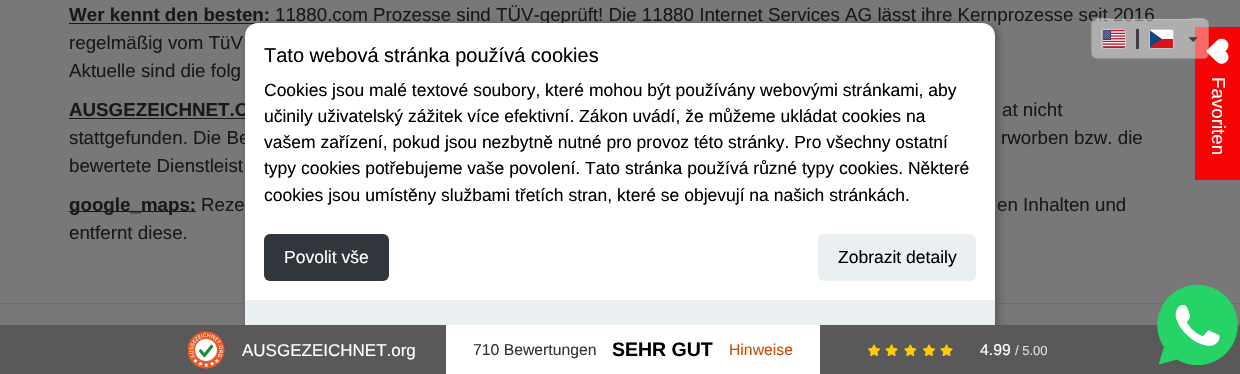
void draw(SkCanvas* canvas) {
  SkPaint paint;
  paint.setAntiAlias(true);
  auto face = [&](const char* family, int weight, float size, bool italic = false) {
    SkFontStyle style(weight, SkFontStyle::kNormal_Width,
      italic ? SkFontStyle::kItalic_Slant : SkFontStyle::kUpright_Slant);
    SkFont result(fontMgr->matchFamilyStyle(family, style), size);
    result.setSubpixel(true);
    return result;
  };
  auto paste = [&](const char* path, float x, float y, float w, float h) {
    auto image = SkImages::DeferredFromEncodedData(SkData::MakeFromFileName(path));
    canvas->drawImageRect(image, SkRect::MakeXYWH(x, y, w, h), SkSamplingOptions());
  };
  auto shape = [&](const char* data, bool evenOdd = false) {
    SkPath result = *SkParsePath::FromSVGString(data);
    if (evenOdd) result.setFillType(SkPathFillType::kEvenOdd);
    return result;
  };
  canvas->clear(0xff787878);
  {
    const struct { float x, y, w, h; SkColor color; } items[] = {
      {69, 23, 189, 1, 0xff191919},
      {69, 118, 176, 1, 0xff191919},
      {69, 211, 127, 1, 0xff191919},
      {0, 303, 1240, 1, 0xff6d6d6d},
    };
    for (auto [x, y, w, h, color] : items) {
      paint.setColor(color);
      canvas->drawRect(SkRect::MakeXYWH(x, y, w, h), paint);
    }
  }
  paint.setColor(0x26000000);
  paint.setMaskFilter(SkMaskFilter::MakeBlur(kNormal_SkBlurStyle, 4));
  canvas->drawRoundRect(SkRect::MakeXYWH(248, 25, 750, 331), 13, 13, paint);
  paint.setMaskFilter(nullptr);
  paint.setMaskFilter(SkMaskFilter::MakeBlur(kNormal_SkBlurStyle, 4));
  canvas->drawRoundRect(SkRect::MakeXYWH(248, 25, 750, 331), 13, 13, paint);
  paint.setMaskFilter(nullptr);
  paint.setColor(0xfff70303);
  canvas->drawRect(SkRect::MakeXYWH(1195, 27, 45, 153), paint);
  paste("img/3.png", 1206, 38, 23, 26);
  auto f0 = face("Liberation Sans", 700, 18.75f);
  paint.setColor(0xff191919);
  canvas->drawString("Wer kennt den besten:", 69, 21, f0, paint);
  auto f1 = face("Liberation Sans", 400, 18.75f);
  {
    const struct { const char* s; float x, y; } items[] = {
      {"11880.com Prozesse sind TÜV-geprüft! Die 11880 Internet Services AG lässt ihre Kernprozesse seit 2016", 275, 21},
      {"regelmäßig vom TüV", 69, 49},
      {"Aktuelle sind die folg", 69, 77},
    };
    for (auto [s, x, y] : items) {
      canvas->drawString(s, x, y, f1, paint);
    }
  }
  canvas->drawString("AUSGEZEICHNET.O", 69, 116, f0, paint);
  {
    const struct { const char* s; float x, y; } items[] = {
      {"at nicht", 1002, 116},
      {"stattgefunden. Die Be", 69, 144},
      {"rworben bzw. die", 1001, 144},
      {"bewertete Dienstleist", 69, 172},
    };
    for (auto [s, x, y] : items) {
      canvas->drawString(s, x, y, f1, paint);
    }
  }
  canvas->drawString("google_maps:", 69, 211, f0, paint);
  {
    const struct { const char* s; float x, y; } items[] = {
      {"Reze", 201, 211},
      {"en Inhalten und", 997, 211},
      {"entfernt diese.", 69, 239},
    };
    for (auto [s, x, y] : items) {
      canvas->drawString(s, x, y, f1, paint);
    }
  }
  paint.setColor(0x66ffffff);
  canvas->drawRoundRect(SkRect::MakeXYWH(1091, 19, 118, 40), 5, 5, paint);
  paint.setColor(0x80cccccc);
  canvas->drawPath(shape("M1096 20H1204C1207 20 1209 22 1209 25C1209 14 1191 19 1186 19H1114C1109 19 1091 14 1091 25C1091 22 1093 20 1096 20Z"), paint);
  paint.setColor(0x2b000000);
  canvas->drawPath(shape("M1091 52V54C1091 57 1093 59 1096 59H1204C1207 59 1209 57 1209 54V52C1209 55 1207 58 1204 58H1096C1093 58 1091 55 1091 52Z"), paint);
  paint.setColor(0x21000000);
  canvas->drawPath(shape("M1202 59C1209 59 1209 56 1209 49V29C1209 22 1209 19 1202 19C1205 19 1208 21 1208 24V54C1208 57 1205 59 1202 59Z"), paint);
  canvas->drawPath(shape("M1096 19C1093 19 1091 21 1091 24V54C1091 57 1093 59 1096 59H1098C1095 59 1092 57 1092 54V24C1092 21 1095 19 1098 19Z"), paint);
  paint.setStroke(true);
  paint.setStrokeWidth(1);
  paint.setColor(0xffc8c9ca);
  canvas->drawRoundRect(SkRect::MakeXYWH(1101.5f, 29.5f, 24, 19), 2, 2, paint);
  paste("img/1.png", 1103, 30, 22, 18);
  paint.setStroke(false);
  paint.setColor(0xff404040);
  canvas->drawRect(SkRect::MakeXYWH(1136, 29, 3, 20), paint);
  paint.setStroke(true);
  paint.setColor(0xffc8c9ca);
  canvas->drawRoundRect(SkRect::MakeXYWH(1149.5f, 29.5f, 24, 19), 2, 2, paint);
  paint.setStroke(false);
  paint.setColor(0xffd7141a);
  canvas->drawRoundRect(SkRect::MakeXYWH(1150, 30, 23, 18), 1, 1, paint);
  paint.setColor(0xffffffff);
  canvas->drawPath(shape("M1151 30H1172C1172.5 30 1173 30.5 1173 31V39H1150V31C1150 30.5 1150.5 30 1151 30Z"), paint);
  paint.setColor(0xff11457e);
  canvas->drawPath(shape("M1162 39L1150 47V30.5Z"), paint);
  paste("img/2.png", 1189, 37, 9, 5);
  paint.setColor(0xffffffff);
  canvas->drawRoundRect(SkRect::MakeXYWH(245, 23, 750, 331), 13, 13, paint);
  auto f2 = face("Liberation Sans", 400, 20);
  paint.setColor(0xff000000);
  canvas->drawString("Tato webová stránka používá cookies", 264, 62, f2, paint);
  auto f3 = face("Liberation Sans", 400, 17.5f);
  {
    const struct { const char* s; float x, y; } items[] = {
      {"Cookies jsou malé textové soubory, které mohou být používány webovými stránkami, aby", 264, 96},
      {"učinily uživatelský zážitek více efektivní. Zákon uvádí, že můžeme ukládat cookies na", 264, 122},
      {"vašem zařízení, pokud jsou nezbytně nutné pro provoz této stránky. Pro všechny ostatní", 264, 148},
      {"typy cookies potřebujeme vaše povolení. Tato stránka používá různé typy cookies. Některé", 264, 174},
      {"cookies jsou umístěny službami třetích stran, které se objevují na našich stránkách.", 264, 201},
    };
    for (auto [s, x, y] : items) {
      canvas->drawString(s, x, y, f3, paint);
    }
  }
  paint.setColor(0xff30363c);
  canvas->drawRoundRect(SkRect::MakeXYWH(264, 234, 125, 47), 6, 6, paint);
  paint.setColor(0xffffffff);
  canvas->drawString("Povolit vše", 284, 263, f3, paint);
  paint.setColor(0xffeaeff2);
  canvas->drawRoundRect(SkRect::MakeXYWH(818, 234, 158, 47), 6, 6, paint);
  paint.setColor(0xff000000);
  canvas->drawString("Zobrazit detaily", 838, 263, f3, paint);
  paint.setColor(0xffeaeff2);
  canvas->drawRect(SkRect::MakeXYWH(245, 301, 750, 24), paint);
  paint.setColor(0xffeeeeee);
  canvas->drawRect(SkRect::MakeXYWH(245, 300, 750, 1), paint);
  paint.setColor(0xffffffff);
  canvas->save();
  canvas->rotate(90, 1212, 77);
  canvas->drawString("Favoriten", 1212, 77, f1, paint);
  canvas->restore();
  paint.setColor(0xff595959);
  canvas->drawRect(SkRect::MakeXYWH(0, 325, 1240, 49), paint);
  paste("img/4.png", 1157, 285, 81, 80);
  paste("img/5.png", 188, 331, 37, 38);
  auto f4 = face("Liberation Sans", 400, 17);
  paint.setColor(0xffffffff);
  canvas->drawString("AUSGEZEICHNET.org", 242, 356, f4, paint);
  canvas->drawRect(SkRect::MakeXYWH(446, 325, 374, 49), paint);
  auto f5 = face("Liberation Sans", 400, 15.75f);
  paint.setColor(0xff333333);
  canvas->drawString("710 Bewertungen", 473, 355, f5, paint);
  auto f6 = face("Liberation Sans", 700, 19.5f);
  paint.setColor(0xff000000);
  canvas->drawString("SEHR GUT", 612, 356, f6, paint);
  paint.setColor(0xffc65102);
  canvas->drawString("Hinweise", 729, 355, f5, paint);
  paste("img/6.png", 868, 344, 12, 12);
  paste("img/7.png", 885, 344, 13, 12);
  paste("img/8.png", 904, 344, 13, 12);
  paste("img/6.png", 923, 344, 12, 12);
  paste("img/7.png", 940, 344, 13, 12);
  paint.setColor(0xffffffff);
  canvas->drawString("4.99", 980, 355, f5, paint);
  auto f7 = face("Liberation Sans", 400, 13);
  paint.setColor(0xffdedede);
  canvas->drawString("/ 5.00", 1015, 355, f7, paint);
  paste("img/9.png", 1157, 285, 81, 80);
}
